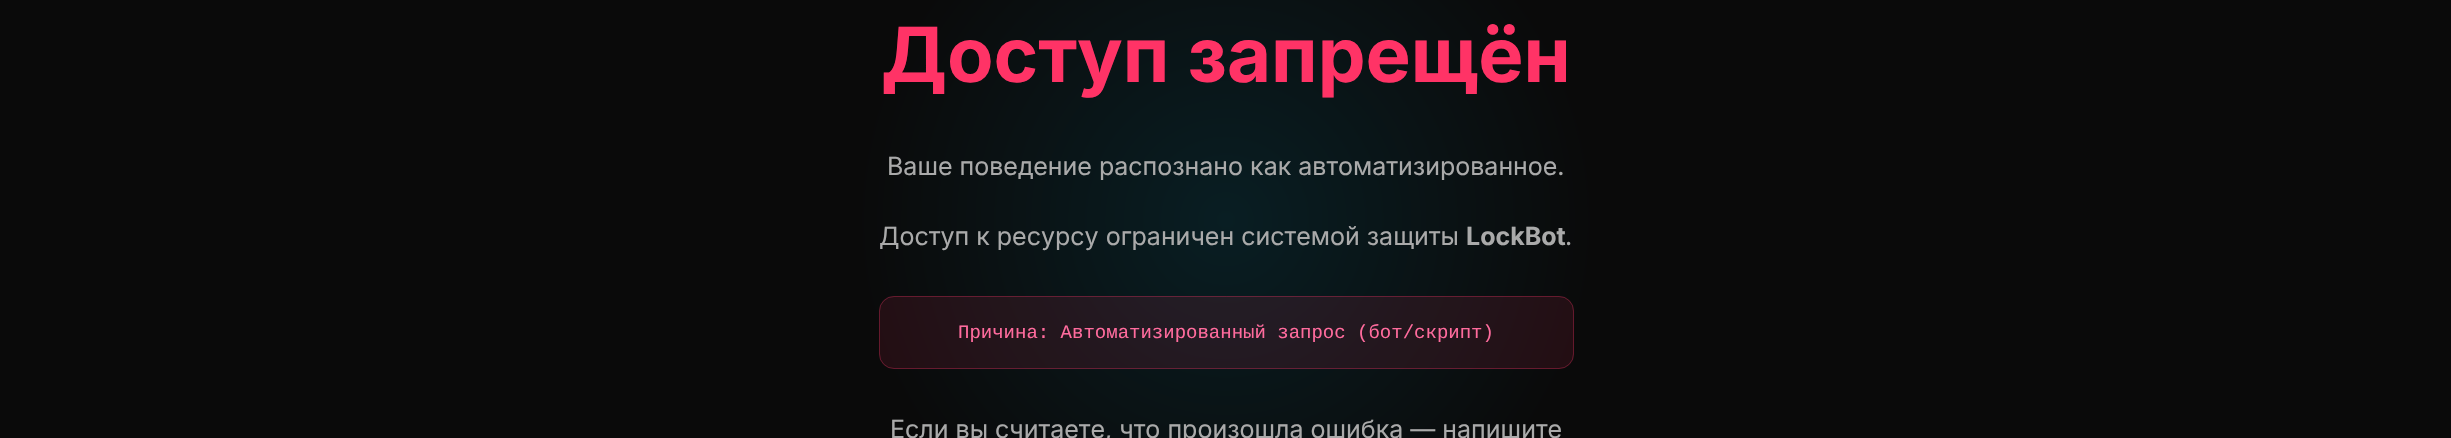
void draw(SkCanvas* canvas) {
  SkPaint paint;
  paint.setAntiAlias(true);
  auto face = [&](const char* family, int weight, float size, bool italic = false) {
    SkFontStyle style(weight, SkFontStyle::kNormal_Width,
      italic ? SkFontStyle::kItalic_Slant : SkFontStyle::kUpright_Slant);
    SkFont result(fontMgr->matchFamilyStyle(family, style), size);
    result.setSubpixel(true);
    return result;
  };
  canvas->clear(0xff0a0a0a);
  {
    const SkColor colors[] = {0xff091e23, 0xff0a0a0a};
    const float stops[] = {0, 0.7f};
    paint.setShader(SkGradientShader::MakeRadial({1226, 220}, 530, colors, stops, 2, SkTileMode::kClamp));
    paint.setAlpha(255);
  }
  canvas->drawCircle(1226, 220, 375, paint);
  paint.setShader(nullptr);
  paint.setColor(0x1aff3366);
  canvas->drawRoundRect(SkRect::MakeXYWH(879, 296, 695, 73), 15, 15, paint);
  paint.setStroke(true);
  paint.setStrokeWidth(1);
  paint.setColor(0x4dff3366);
  canvas->drawRoundRect(SkRect::MakeXYWH(879.5f, 296.5f, 694, 72), 14.5f, 14.5f, paint);
  auto f0 = face("Inter", 700, 76);
  paint.setStroke(false);
  paint.setColor(0xffff3366);
  canvas->drawString("Доступ запрещён", 881, 82, f0, paint);
  auto f1 = face("Inter", 400, 25);
  paint.setColor(0xffaaaaaa);
  canvas->drawString("Ваше поведение распознано как автоматизированное.", 887, 175, f1, paint);
  canvas->drawString("Доступ к ресурсу ограничен системой защиты", 879, 245, f1, paint);
  auto f2 = face("Inter", 700, 25);
  canvas->drawString("LockBot", 1466, 245, f2, paint);
  canvas->drawString(".", 1565, 245, f1, paint);
  auto f3 = face("Liberation Mono", 400, 19);
  paint.setColor(0xffff6b9d);
  canvas->drawString("Причина: Автоматизированный запрос (бот/скрипт)", 958, 338, f3, paint);
  paint.setColor(0xffaaaaaa);
  canvas->drawString("Если вы считаете, что произошла ошибка — напишите", 890, 438, f1, paint);
}
